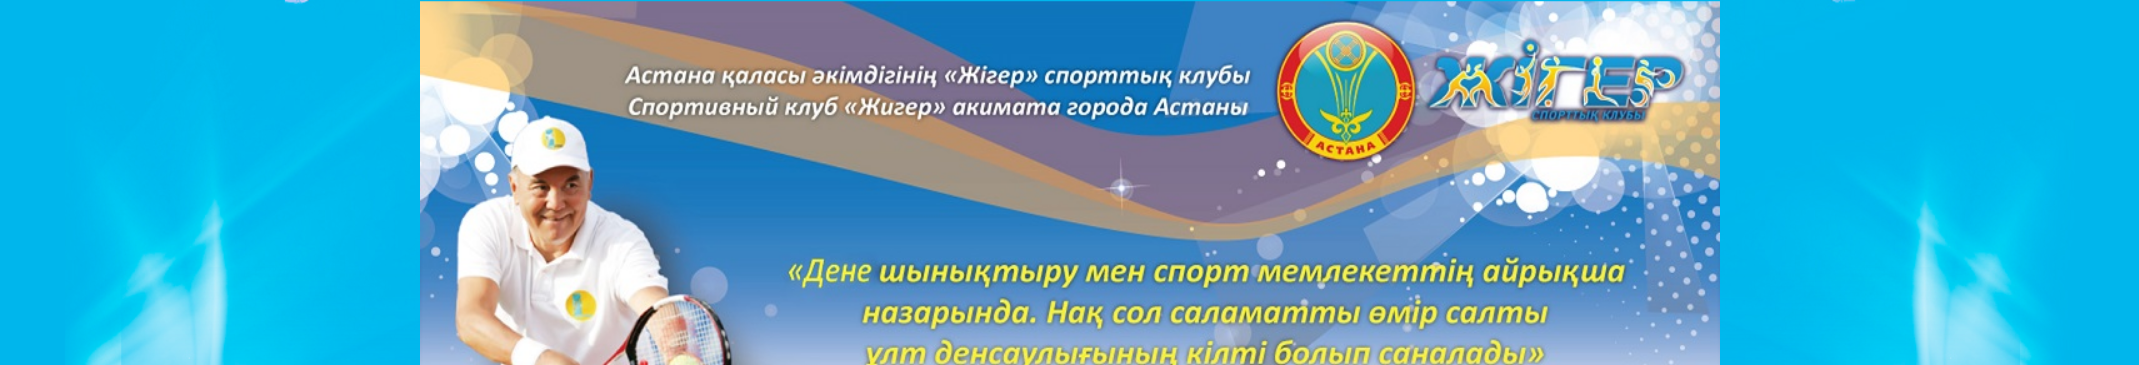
void draw(SkCanvas* canvas) {
  SkPaint paint;
  paint.setAntiAlias(true);
  auto paste = [&](const char* path, float x, float y, float w, float h) {
    auto image = SkImages::DeferredFromEncodedData(SkData::MakeFromFileName(path));
    canvas->drawImageRect(image, SkRect::MakeXYWH(x, y, w, h), SkSamplingOptions());
  };
  canvas->clear(0xffffffff);
  paste("img/1.png", 0, 0, 2139, 365);
  paste("img/2.png", 121, 267, 1899, 98);
  paste("img/3.png", 420, 1, 1300, 364);
}
